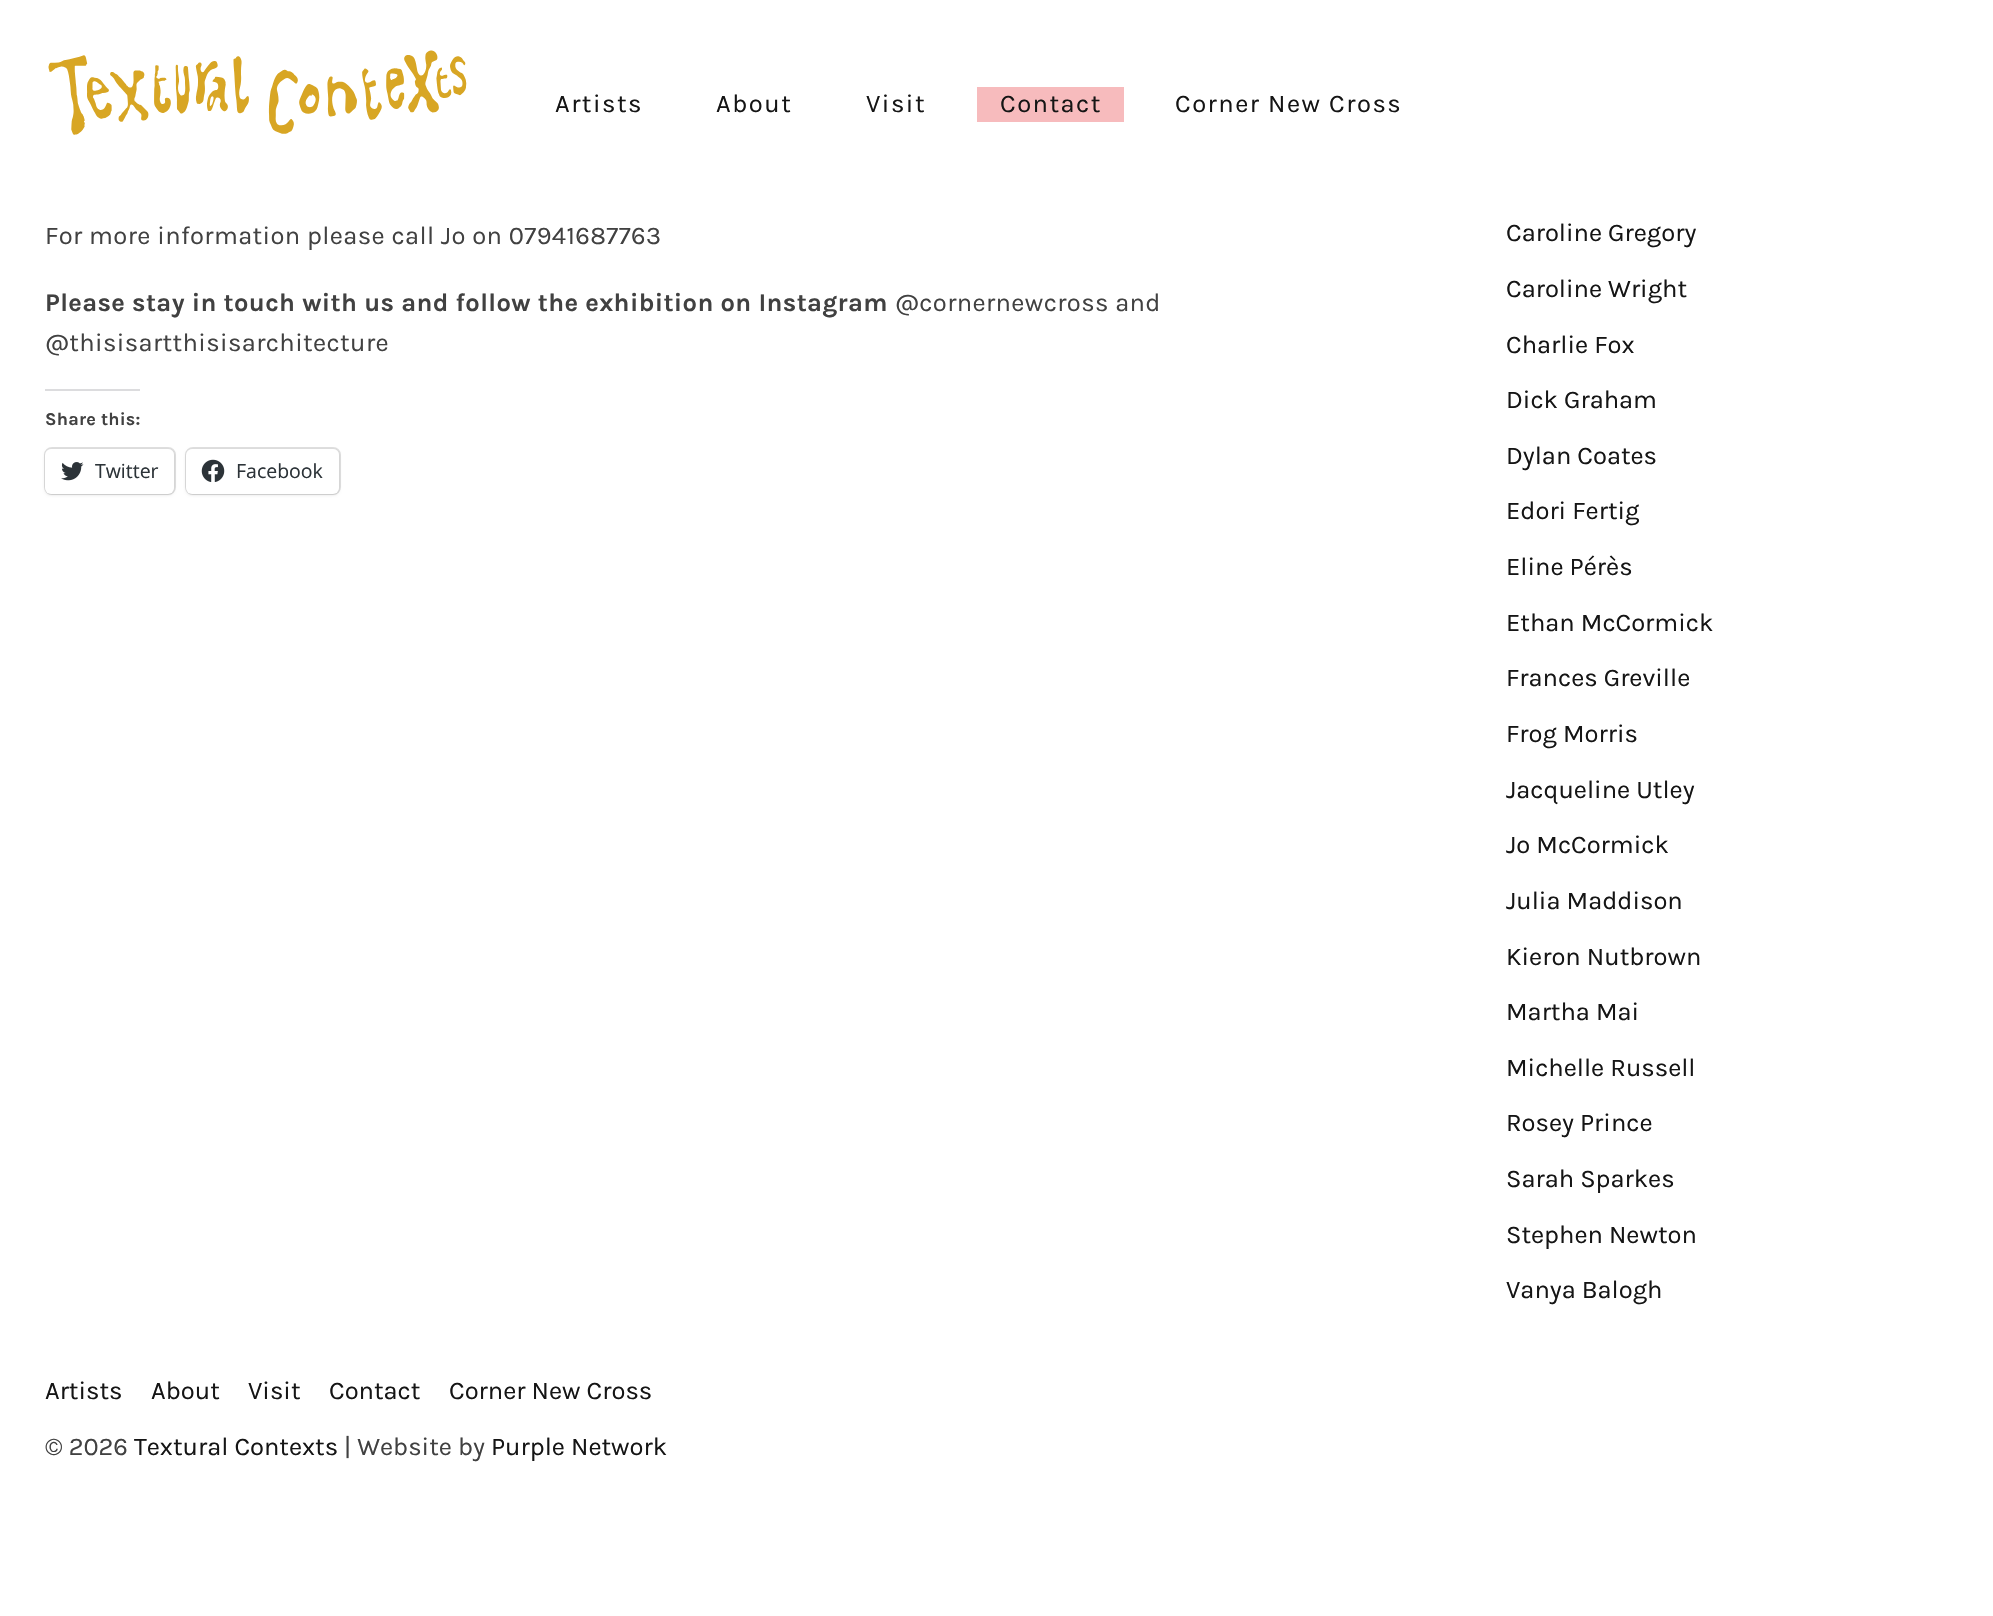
void draw(SkCanvas* canvas) {
  SkPaint paint;
  paint.setAntiAlias(true);
  auto face = [&](const char* family, int weight, float size, bool italic = false) {
    SkFontStyle style(weight, SkFontStyle::kNormal_Width,
      italic ? SkFontStyle::kItalic_Slant : SkFontStyle::kUpright_Slant);
    SkFont result(fontMgr->matchFamilyStyle(family, style), size);
    result.setSubpixel(true);
    return result;
  };
  auto writeSpaced = [&](const char* s, float x, float y, const SkFont& font, const SkPaint& ink, float letter, float word) {
    std::vector<SkGlyphID> glyphs(font.countText(s, strlen(s), SkTextEncoding::kUTF8));
    std::vector<float> xs(glyphs.size());
    font.textToGlyphs(s, strlen(s), SkTextEncoding::kUTF8, glyphs);
    font.getXPos(glyphs, xs, x);
    float extra = 0;
    for (size_t i = 0; i < glyphs.size(); i++) {
      xs[i] += extra;
      extra += letter + word * (glyphs[i] == font.unicharToGlyph(' '));
    }
    canvas->drawTextBlob(SkTextBlob::MakeFromPosHGlyphs(glyphs, xs, y, font), 0, 0, ink);
  };
  auto paste = [&](const char* path, float x, float y, float w, float h) {
    auto image = SkImages::DeferredFromEncodedData(SkData::MakeFromFileName(path));
    canvas->drawImageRect(image, SkRect::MakeXYWH(x, y, w, h), SkSamplingOptions());
  };
  canvas->clear(0xffffffff);
  paste("img/1.png", 48, 50, 419, 85);
  paint.setColor(0xfff7bbbd);
  canvas->drawRect(SkRect::MakeXYWH(977, 87, 147, 35), paint);
  paint.setColor(0xffdcdcde);
  canvas->drawRect(SkRect::MakeXYWH(45, 389, 95, 2), paint);
  paint.setStroke(true);
  paint.setStrokeWidth(2);
  paint.setColor(0xffe0e0e0);
  canvas->drawRoundRect(SkRect::MakeXYWH(45, 448, 130, 46), 7, 7, paint);
  paint.setStroke(false);
  paint.setColor(0x1f000000);
  paint.setMaskFilter(SkMaskFilter::MakeBlur(kNormal_SkBlurStyle, 1.5f));
  canvas->drawRoundRect(SkRect::MakeXYWH(45, 450, 129, 45), 6, 6, paint);
  paint.setMaskFilter(nullptr);
  paint.setColor(0xffffffff);
  canvas->drawRoundRect(SkRect::MakeXYWH(45, 449, 129, 45), 6, 6, paint);
  paste("img/2.png", 61, 462, 23, 19);
  paint.setStroke(true);
  paint.setColor(0xffe0e0e0);
  canvas->drawRoundRect(SkRect::MakeXYWH(186, 448, 154, 46), 7, 7, paint);
  paint.setStroke(false);
  paint.setColor(0x1f000000);
  paint.setMaskFilter(SkMaskFilter::MakeBlur(kNormal_SkBlurStyle, 1.5f));
  canvas->drawRoundRect(SkRect::MakeXYWH(186, 450, 153, 45), 6, 6, paint);
  paint.setMaskFilter(nullptr);
  paint.setColor(0xffffffff);
  canvas->drawRoundRect(SkRect::MakeXYWH(186, 449, 153, 45), 6, 6, paint);
  paste("img/3.png", 201, 459, 24, 23);
  auto f0 = face("Karla", 400, 25.5f);
  paint.setColor(0xff151515);
  {
    const struct { const char* s; float x, y; } items[] = {
      {"Artists", 555, 112},
      {"About", 716, 112},
      {"Visit", 866, 112},
      {"Contact", 1000, 112},
      {"Corner New Cross", 1175, 112},
    };
    for (auto [s, x, y] : items) {
      writeSpaced(s, x, y, f0, paint, 1.5f, 0);
    }
  }
  paint.setColor(0xff414141);
  writeSpaced("For more information please call Jo on 07941687763", 45, 244, f0, paint, 0.38f, 0);
  auto f1 = face("Karla", 700, 25.5f);
  writeSpaced("Please stay in touch with us and follow the exhibition on Instagram", 45, 311, f1, paint, 0.38f, 0);
  writeSpaced("@cornernewcross and", 895, 311, f0, paint, 0.38f, 0);
  writeSpaced("@thisisartthisisarchitecture", 45, 351, f0, paint, 0.38f, 0);
  auto f2 = face("Karla", 700, 18);
  writeSpaced("Share this:", 45, 425, f2, paint, 0.25f, 0);
  auto f3 = face("Open Sans", 400, 19.5f);
  paint.setColor(0xff2c3338);
  canvas->drawString("Twitter", 95, 478, f3, paint);
  canvas->drawString("Facebook", 236, 478, f3, paint);
  paint.setColor(0xff151515);
  {
    const struct { const char* s; float x, y; } items[] = {
      {"Caroline Gregory", 1506, 241},
      {"Caroline Wright", 1506, 297},
      {"Charlie Fox", 1506, 353},
      {"Dick Graham", 1506, 408},
      {"Dylan Coates", 1506, 464},
      {"Edori Fertig", 1506, 519},
      {"Eline Pérès", 1506, 575},
      {"Ethan McCormick", 1506, 631},
      {"Frances Greville", 1506, 686},
      {"Frog Morris", 1506, 742},
      {"Jacqueline Utley", 1506, 798},
      {"Jo McCormick", 1506, 853},
      {"Julia Maddison", 1506, 909},
      {"Kieron Nutbrown", 1506, 965},
      {"Martha Mai", 1506, 1020},
      {"Michelle Russell", 1506, 1076},
      {"Rosey Prince", 1506, 1131},
      {"Sarah Sparkes", 1506, 1187},
      {"Stephen Newton", 1506, 1243},
      {"Vanya Balogh", 1506, 1298},
      {"Artists", 45, 1399},
      {"About", 151, 1399},
      {"Visit", 248, 1399},
      {"Contact", 329, 1399},
      {"Corner New Cross", 449, 1399},
    };
    for (auto [s, x, y] : items) {
      canvas->drawString(s, x, y, f0, paint);
    }
  }
  paint.setColor(0xff414141);
  canvas->drawString("© 2026", 45, 1455, f0, paint);
  paint.setColor(0xff151515);
  canvas->drawString("Textural Contexts", 134, 1455, f0, paint);
  paint.setColor(0xff414141);
  canvas->drawString("| Website by", 344, 1455, f0, paint);
  paint.setColor(0xff151515);
  canvas->drawString("Purple Network", 491, 1455, f0, paint);
}
